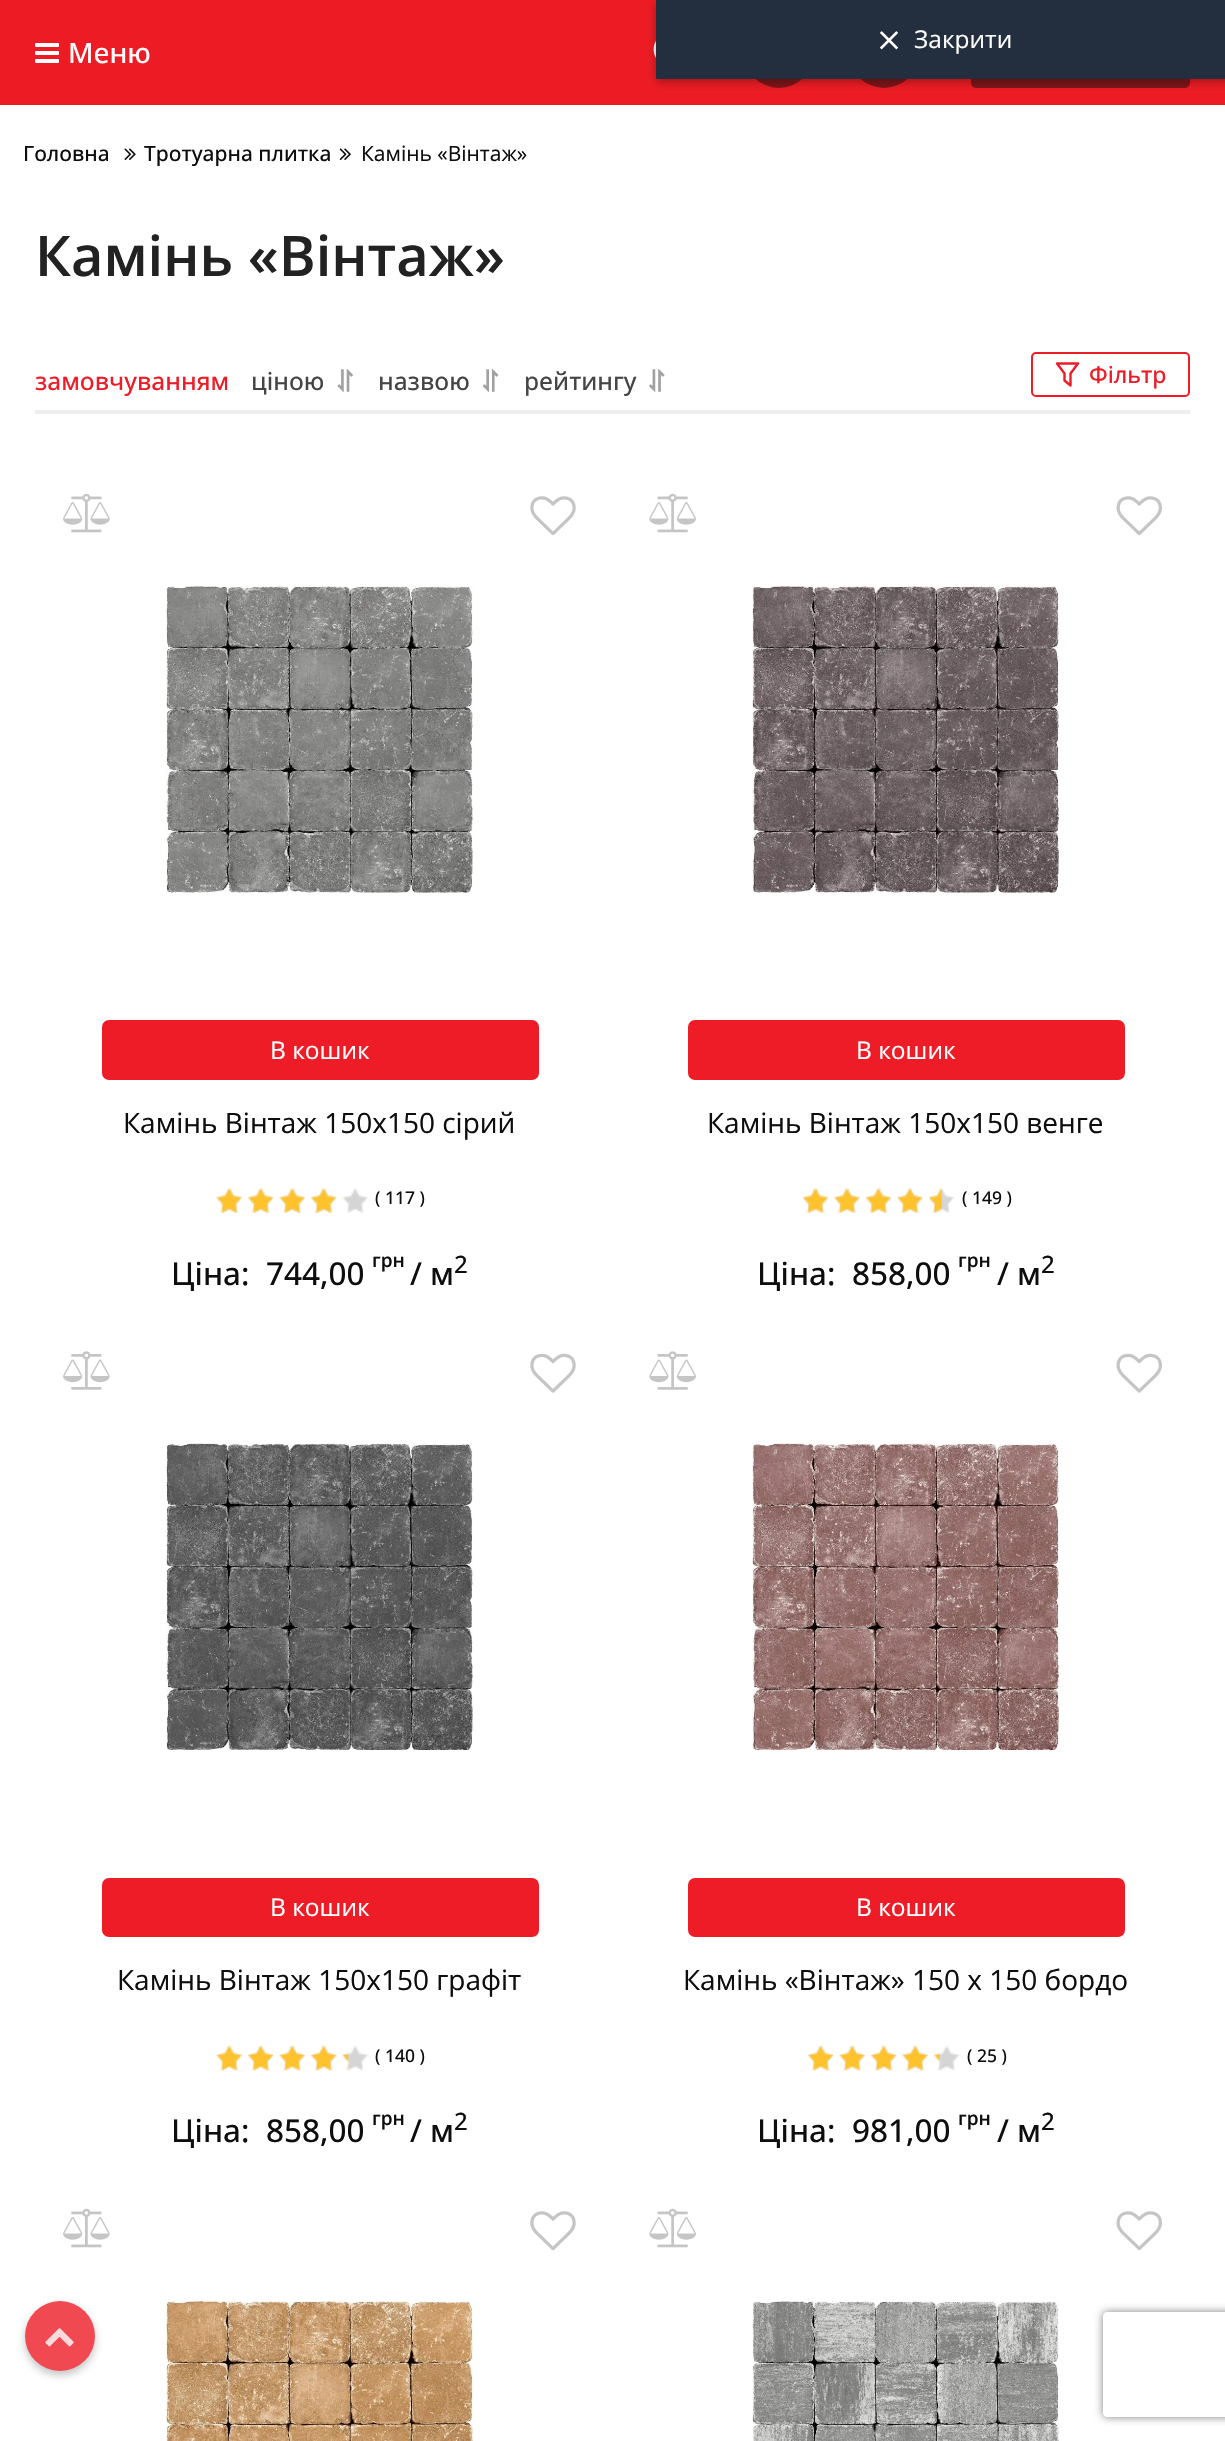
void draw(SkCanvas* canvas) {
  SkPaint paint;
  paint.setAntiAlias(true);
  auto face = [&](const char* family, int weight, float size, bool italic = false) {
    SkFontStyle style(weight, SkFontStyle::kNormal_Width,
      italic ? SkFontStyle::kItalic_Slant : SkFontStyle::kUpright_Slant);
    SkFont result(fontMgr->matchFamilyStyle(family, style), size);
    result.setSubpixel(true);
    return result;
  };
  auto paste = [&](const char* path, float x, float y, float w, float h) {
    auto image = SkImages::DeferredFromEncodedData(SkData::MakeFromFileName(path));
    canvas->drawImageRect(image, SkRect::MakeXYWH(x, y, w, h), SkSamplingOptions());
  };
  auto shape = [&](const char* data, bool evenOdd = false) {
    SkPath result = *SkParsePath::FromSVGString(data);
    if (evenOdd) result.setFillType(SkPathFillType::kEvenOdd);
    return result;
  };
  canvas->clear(0xffffffff);
  paint.setColor(0xffed1c24);
  canvas->drawRect(SkRect::MakeXYWH(0, 0, 1225, 105), paint);
  paste("img/32.png", 653, 41, 3, 17);
  paint.setColor(0xff7e1519);
  canvas->drawCircle(779, 53, 35, paint);
  canvas->drawCircle(884, 53, 35, paint);
  canvas->drawRoundRect(SkRect::MakeXYWH(971, 18, 219, 70), 5, 5, paint);
  paint.setColor(0x4d000000);
  paint.setMaskFilter(SkMaskFilter::MakeBlur(kNormal_SkBlurStyle, 4.5f));
  canvas->drawRect(SkRect::MakeXYWH(656, 4, 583, 78), paint);
  paint.setMaskFilter(nullptr);
  paint.setColor(0xff232f3e);
  canvas->drawRect(SkRect::MakeXYWH(656, 0, 569, 79), paint);
  paste("img/1.png", 879, 31, 20, 19);
  paint.setColor(0xffeeeeee);
  canvas->drawRect(SkRect::MakeXYWH(35, 410, 1155, 4), paint);
  paste("img/2.png", 337, 369, 16, 23);
  paste("img/3.png", 482, 369, 17, 23);
  paste("img/4.png", 649, 369, 16, 23);
  paint.setStroke(true);
  paint.setStrokeWidth(2);
  paint.setColor(0xffed1c26);
  canvas->drawRoundRect(SkRect::MakeXYWH(1032, 353, 157, 43), 4, 4, paint);
  paint.setStrokeWidth(2.4f);
  paint.setStrokeCap(SkPaint::kRound_Cap);
  paint.setStrokeJoin(SkPaint::kRound_Join);
  canvas->drawPath(shape("M1057 363.5H1078L1070.5 373.5V385.5L1064.5 380.5V373.5Z"), paint);
  paste("img/5.png", 63, 493, 47, 40);
  paste("img/6.png", 530, 496, 46, 40);
  paste("img/7.png", 166, 586, 307, 307);
  paint.setStroke(false);
  canvas->drawRoundRect(SkRect::MakeXYWH(103, 1021, 435, 58), 6, 6, paint);
  paint.setStroke(true);
  paint.setStrokeWidth(2);
  paint.setStrokeCap(SkPaint::kButt_Cap);
  paint.setStrokeJoin(SkPaint::kMiter_Join);
  canvas->drawRoundRect(SkRect::MakeXYWH(103, 1021, 435, 58), 6, 6, paint);
  paste("img/8.png", 216, 1188, 152, 25);
  paste("img/9.png", 216, 1188, 127, 26);
  paste("img/10.png", 649, 493, 47, 40);
  paste("img/11.png", 1116, 496, 46, 40);
  paste("img/12.png", 752, 586, 307, 307);
  paint.setStroke(false);
  canvas->drawRoundRect(SkRect::MakeXYWH(689, 1021, 435, 58), 6, 6, paint);
  paint.setStroke(true);
  canvas->drawRoundRect(SkRect::MakeXYWH(689, 1021, 435, 58), 6, 6, paint);
  paste("img/13.png", 803, 1188, 151, 25);
  paste("img/14.png", 802, 1188, 140, 26);
  paste("img/15.png", 63, 1351, 47, 39);
  paste("img/16.png", 530, 1353, 46, 40);
  paste("img/17.png", 166, 1443, 307, 307);
  paint.setStroke(false);
  canvas->drawRoundRect(SkRect::MakeXYWH(103, 1879, 435, 57), 6, 6, paint);
  paint.setStroke(true);
  canvas->drawRoundRect(SkRect::MakeXYWH(103, 1879, 435, 57), 6, 6, paint);
  paste("img/18.png", 216, 2045, 152, 26);
  paste("img/19.png", 216, 2045, 133, 26);
  paste("img/20.png", 649, 1351, 47, 39);
  paste("img/21.png", 1116, 1353, 46, 40);
  paste("img/22.png", 752, 1443, 307, 307);
  paint.setStroke(false);
  canvas->drawRoundRect(SkRect::MakeXYWH(689, 1879, 435, 57), 6, 6, paint);
  paint.setStroke(true);
  canvas->drawRoundRect(SkRect::MakeXYWH(689, 1879, 435, 57), 6, 6, paint);
  paste("img/23.png", 808, 2045, 152, 26);
  paste("img/24.png", 808, 2045, 132, 26);
  paste("img/25.png", 63, 2208, 47, 40);
  paste("img/6.png", 530, 2211, 46, 40);
  paste("img/26.png", 166, 2301, 307, 140);
  paste("img/27.png", 649, 2208, 47, 40);
  paste("img/11.png", 1116, 2211, 46, 40);
  paste("img/28.png", 752, 2301, 307, 140);
  paste("img/29.png", 124, 148, 12, 12);
  paste("img/30.png", 339, 148, 12, 12);
  paste("img/31.png", 35, 43, 24, 20);
  paint.setStroke(false);
  paint.setColor(0x4d333333);
  paint.setMaskFilter(SkMaskFilter::MakeBlur(kNormal_SkBlurStyle, 4.5f));
  canvas->drawRoundRect(SkRect::MakeXYWH(25, 2305, 70, 70), 35, 35, paint);
  paint.setMaskFilter(nullptr);
  paint.setColor(0xfff14951);
  canvas->drawCircle(60, 2336, 35, paint);
  paste("img/33.png", 45, 2328, 29, 19);
  canvas->save();
  canvas->clipPath(shape("M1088 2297H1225V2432H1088ZM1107 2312H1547C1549 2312 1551 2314 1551 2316V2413C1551 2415 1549 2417 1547 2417H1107C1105 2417 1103 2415 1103 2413V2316C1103 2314 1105 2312 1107 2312Z", true), true);
  paint.setColor(0xff808080);
  paint.setMaskFilter(SkMaskFilter::MakeBlur(kNormal_SkBlurStyle, 4.5f));
  canvas->drawRoundRect(SkRect::MakeXYWH(1103, 2312, 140, 105), 4, 4, paint);
  paint.setMaskFilter(nullptr);
  canvas->restore();
  auto f0 = face("Open Sans", 400, 24.5f);
  paint.setColor(0xffffffff);
  canvas->drawString("Закрити", 914, 48, f0, paint);
  auto f1 = face("Open Sans", 600, 56);
  paint.setColor(0xff222222);
  canvas->drawString("Камінь «Вінтаж»", 35, 276, f1, paint);
  auto f2 = face("Open Sans", 500, 24.5f);
  paint.setColor(0xffed1c26);
  canvas->drawString("замовчуванням", 35, 390, f2, paint);
  paint.setColor(0xff454545);
  {
    const struct { const char* s; float x, y; } items[] = {
      {"ціною", 251, 390},
      {"назвою", 378, 390},
      {"рейтингу", 524, 390},
    };
    for (auto [s, x, y] : items) {
      canvas->drawString(s, x, y, f2, paint);
    }
  }
  auto f3 = face("Open Sans", 500, 23);
  paint.setColor(0xffed1c26);
  canvas->drawString("Фільтр", 1089, 383, f3, paint);
  paint.setColor(0xffffffff);
  canvas->drawString("В кошик", 270, 1059, f0, paint);
  auto f4 = face("Open Sans", 400, 28);
  paint.setColor(0xff0e0e0e);
  canvas->drawString("Камінь Вінтаж 150х150 сірий", 123, 1133, f4, paint);
  auto f5 = face("Open Sans", 500, 17.5f);
  canvas->drawString("( 117 )", 375, 1204, f5, paint);
  auto f6 = face("Open Sans", 500, 31.5f);
  canvas->drawString("Ціна:", 171, 1285, f6, paint);
  canvas->drawString("744,00", 266, 1285, f6, paint);
  auto f7 = face("Open Sans", 600, 19);
  canvas->drawString("грн", 372, 1267, f7, paint);
  canvas->drawString("/ м", 410, 1285, f6, paint);
  auto f8 = face("Open Sans", 500, 24);
  canvas->drawString("2", 454, 1273, f8, paint);
  paint.setColor(0xffffffff);
  canvas->drawString("В кошик", 856, 1059, f0, paint);
  paint.setColor(0xff0e0e0e);
  canvas->drawString("Камінь Вінтаж 150х150 венге", 707, 1133, f4, paint);
  canvas->drawString("( 149 )", 962, 1204, f5, paint);
  canvas->drawString("Ціна:", 757, 1285, f6, paint);
  canvas->drawString("858,00", 852, 1285, f6, paint);
  canvas->drawString("грн", 958, 1267, f7, paint);
  canvas->drawString("/ м", 997, 1285, f6, paint);
  canvas->drawString("2", 1041, 1273, f8, paint);
  paint.setColor(0xffffffff);
  canvas->drawString("В кошик", 270, 1916, f0, paint);
  paint.setColor(0xff0e0e0e);
  canvas->drawString("Камінь Вінтаж 150х150 графіт", 117, 1990, f4, paint);
  canvas->drawString("( 140 )", 375, 2062, f5, paint);
  canvas->drawString("Ціна:", 171, 2142, f6, paint);
  canvas->drawString("858,00", 266, 2142, f6, paint);
  canvas->drawString("грн", 372, 2125, f7, paint);
  canvas->drawString("/ м", 410, 2142, f6, paint);
  canvas->drawString("2", 454, 2130, f8, paint);
  paint.setColor(0xffffffff);
  canvas->drawString("В кошик", 856, 1916, f0, paint);
  paint.setColor(0xff0e0e0e);
  canvas->drawString("Камінь «Вінтаж» 150 х 150 бордо", 683, 1990, f4, paint);
  canvas->drawString("( 25 )", 967, 2062, f5, paint);
  canvas->drawString("Ціна:", 757, 2142, f6, paint);
  canvas->drawString("981,00", 852, 2142, f6, paint);
  canvas->drawString("грн", 958, 2125, f7, paint);
  canvas->drawString("/ м", 997, 2142, f6, paint);
  canvas->drawString("2", 1041, 2130, f8, paint);
  auto f9 = face("Open Sans", 500, 21);
  canvas->drawString("Головна", 23, 161, f9, paint);
  canvas->drawString("Тротуарна плитка", 144, 161, f9, paint);
  auto f10 = face("Open Sans", 400, 21);
  canvas->drawString("Камінь «Вінтаж»", 361, 161, f10, paint);
  auto f11 = face("Open Sans", 500, 28);
  paint.setColor(0xffffffff);
  canvas->drawString("Меню", 68, 63, f11, paint);
}
